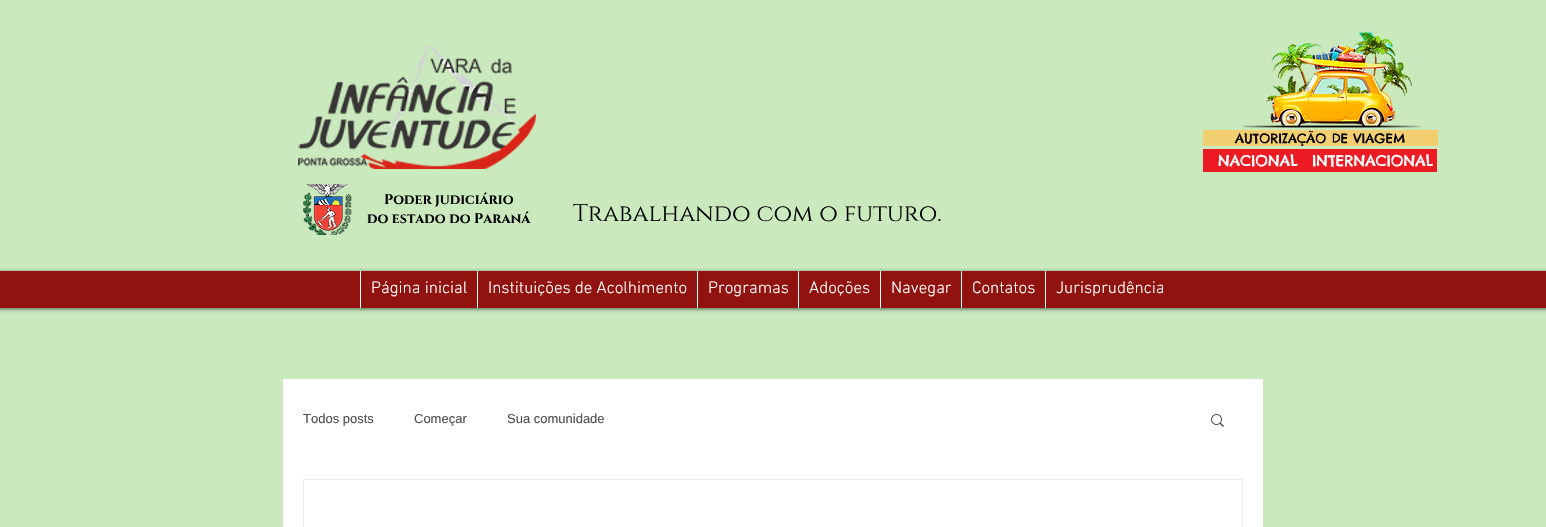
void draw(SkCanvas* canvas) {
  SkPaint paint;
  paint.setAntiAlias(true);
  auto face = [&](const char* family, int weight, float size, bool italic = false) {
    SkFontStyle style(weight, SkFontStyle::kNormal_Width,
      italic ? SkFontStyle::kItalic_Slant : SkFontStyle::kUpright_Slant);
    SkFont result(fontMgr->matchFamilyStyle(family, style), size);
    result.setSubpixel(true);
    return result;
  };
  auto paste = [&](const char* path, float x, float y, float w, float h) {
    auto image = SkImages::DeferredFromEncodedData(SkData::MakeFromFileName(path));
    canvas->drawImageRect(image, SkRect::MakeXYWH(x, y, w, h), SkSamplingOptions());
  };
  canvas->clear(0xffcae9bd);
  paste("img/1.png", 298, 46, 238, 123);
  paste("img/2.png", 1243, 31, 178, 97);
  paint.setColor(0xfff4cf71);
  canvas->drawRect(SkRect::MakeXYWH(1203, 130, 235, 16), paint);
  paint.setColor(0xffed1c24);
  canvas->drawRect(SkRect::MakeXYWH(1203, 149, 234, 23), paint);
  paste("img/3.png", 303, 184, 49, 51);
  paint.setColor(0x99000000);
  paint.setMaskFilter(SkMaskFilter::MakeBlur(kNormal_SkBlurStyle, 2));
  canvas->drawRect(SkRect::MakeXYWH(-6, 272, 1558, 37), paint);
  paint.setMaskFilter(nullptr);
  {
    const struct { float x, y, w, h; SkColor color; } items[] = {
      {0, 271, 1546, 37, 0xff90130f},
      {360, 271, 1, 37, 0xffffffff},
      {477, 271, 1, 37, 0xffffffff},
      {697, 271, 1, 37, 0xffffffff},
      {798, 271, 1, 37, 0xffffffff},
      {880, 271, 1, 37, 0xffffffff},
      {961, 271, 1, 37, 0xffffffff},
      {1045, 271, 1, 37, 0xffffffff},
      {283, 379, 980, 148, 0xffffffff},
    };
    for (auto [x, y, w, h, color] : items) {
      paint.setColor(color);
      canvas->drawRect(SkRect::MakeXYWH(x, y, w, h), paint);
    }
  }
  paste("img/4.png", 1211, 414, 13, 13);
  paint.setStroke(true);
  paint.setStrokeWidth(1);
  paint.setColor(0xffededed);
  canvas->drawRect(SkRect::MakeXYWH(303.5f, 479.5f, 939, 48), paint);
  auto f0 = face("Chelsea Market", 400, 13);
  paint.setStroke(false);
  paint.setColor(0xff000000);
  canvas->drawString("AUTORIZAÇÃO DE VIAGEM", 1235, 143, f0, paint);
  auto f1 = face("Chelsea Market", 400, 15);
  paint.setColor(0xffffffff);
  canvas->drawString("NACIONAL", 1218, 166, f1, paint);
  canvas->drawString("INTERNACIONAL", 1312, 166, f1, paint);
  auto f2 = face("Cinzel", 700, 14);
  paint.setColor(0xff000000);
  canvas->drawString("Poder judiciário", 384, 204, f2, paint);
  canvas->drawString("do estado do Paraná", 367, 223, f2, paint);
  auto f3 = face("Cinzel", 400, 24);
  canvas->drawString("Trabalhando com o futuro.", 573, 221, f3, paint);
  auto f4 = face("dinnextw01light", 300, 17);
  paint.setColor(0xffffffff);
  {
    const struct { const char* s; float x, y; } items[] = {
      {"Página inicial", 371, 293},
      {"Instituições de Acolhimento", 488, 293},
      {"Programas", 708, 293},
      {"Adoções", 809, 293},
      {"Navegar", 891, 293},
      {"Contatos", 972, 293},
      {"Jurisprudência", 1056, 293},
    };
    for (auto [s, x, y] : items) {
      canvas->drawString(s, x, y, f4, paint);
    }
  }
  auto f5 = face("Liberation Sans", 400, 13);
  paint.setColor(0xff4d4d4d);
  {
    const struct { const char* s; float x, y; } items[] = {
      {"Todos posts", 303, 423},
      {"Começar", 414, 423},
      {"Sua comunidade", 507, 423},
    };
    for (auto [s, x, y] : items) {
      canvas->drawString(s, x, y, f5, paint);
    }
  }
}
